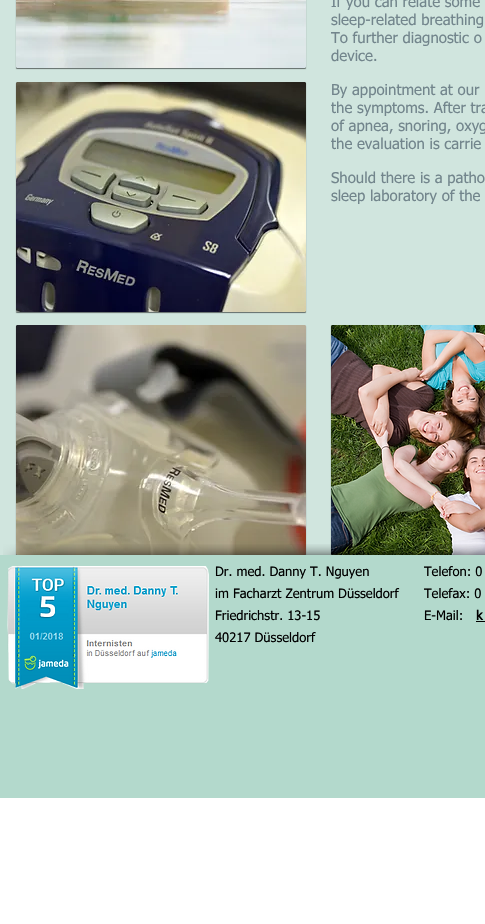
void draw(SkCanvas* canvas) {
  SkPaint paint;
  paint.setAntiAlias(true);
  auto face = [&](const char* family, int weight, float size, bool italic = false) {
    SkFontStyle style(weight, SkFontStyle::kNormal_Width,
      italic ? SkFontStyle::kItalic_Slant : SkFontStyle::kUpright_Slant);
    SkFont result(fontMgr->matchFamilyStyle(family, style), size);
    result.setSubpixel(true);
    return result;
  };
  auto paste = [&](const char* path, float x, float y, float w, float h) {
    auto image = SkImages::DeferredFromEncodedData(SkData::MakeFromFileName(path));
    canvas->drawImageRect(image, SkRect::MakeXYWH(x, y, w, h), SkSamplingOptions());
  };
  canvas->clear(0xffffffff);
  paint.setColor(0xffd0e5de);
  canvas->drawRect(SkRect::MakeXYWH(0, 0, 485, 555), paint);
  paint.setColor(0x87000000);
  paint.setMaskFilter(SkMaskFilter::MakeBlur(kNormal_SkBlurStyle, 0.5f));
  canvas->drawRoundRect(SkRect::MakeXYWH(16, -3, 290, 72), 1, 1, paint);
  paint.setMaskFilter(nullptr);
  paste("img/1.png", 16, 0, 290, 68);
  paint.setMaskFilter(SkMaskFilter::MakeBlur(kNormal_SkBlurStyle, 0.5f));
  canvas->drawRoundRect(SkRect::MakeXYWH(16, 83, 290, 230), 1, 1, paint);
  paint.setMaskFilter(nullptr);
  paste("img/2.png", 16, 82, 290, 230);
  paint.setMaskFilter(SkMaskFilter::MakeBlur(kNormal_SkBlurStyle, 0.5f));
  canvas->drawRoundRect(SkRect::MakeXYWH(16, 326, 290, 230), 1, 1, paint);
  paint.setMaskFilter(nullptr);
  paste("img/3.png", 16, 325, 290, 230);
  paint.setMaskFilter(SkMaskFilter::MakeBlur(kNormal_SkBlurStyle, 0.5f));
  canvas->drawRoundRect(SkRect::MakeXYWH(331, 326, 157, 230), 1, 1, paint);
  paint.setMaskFilter(nullptr);
  paste("img/4.png", 331, 325, 154, 230);
  paint.setColor(0xffb3d9cc);
  canvas->drawRect(SkRect::MakeXYWH(0, 555, 485, 243), paint);
  paste("img/5.png", 3, 544, 97, 11);
  paste("img/6.png", 100, 544, 385, 11);
  paste("img/7.png", 7, 566, 202, 123);
  paint.setColor(0xff000000);
  canvas->drawRect(SkRect::MakeXYWH(476, 621, 9, 1), paint);
  auto f0 = face("tahoma", 400, 15);
  paint.setColor(0xff72858c);
  {
    const struct { const char* s; float x, y; } items[] = {
      {"If you can relate some", 331, 7},
      {"sleep-related breathing", 331, 25},
      {"To further diagnostic o", 331, 43},
      {"device.", 331, 61},
      {"By appointment at our", 331, 95},
      {"the symptoms. After tra", 331, 113},
      {"of apnea, snoring, oxyg", 331, 131},
      {"the evaluation is carrie", 331, 149},
      {"Should there is a patho", 331, 183},
      {"sleep laboratory of the", 331, 201},
    };
    for (auto [s, x, y] : items) {
      canvas->drawString(s, x, y, f0, paint);
    }
  }
  auto f1 = face("tahoma", 400, 13);
  paint.setColor(0xff000000);
  {
    const struct { const char* s; float x, y; } items[] = {
      {"Dr. med. Danny T. Nguyen", 215, 576},
      {"im Facharzt Zentrum Düsseldorf", 215, 598},
      {"Friedrichstr. 13-15", 215, 620},
      {"40217 Düsseldorf", 215, 642},
      {"Telefon: 0", 424, 576},
      {"Telefax: 0", 424, 598},
      {"E-Mail:", 424, 620},
    };
    for (auto [s, x, y] : items) {
      canvas->drawString(s, x, y, f1, paint);
    }
  }
  auto f2 = face("tahoma", 700, 13);
  canvas->drawString("k", 476, 620, f2, paint);
}
